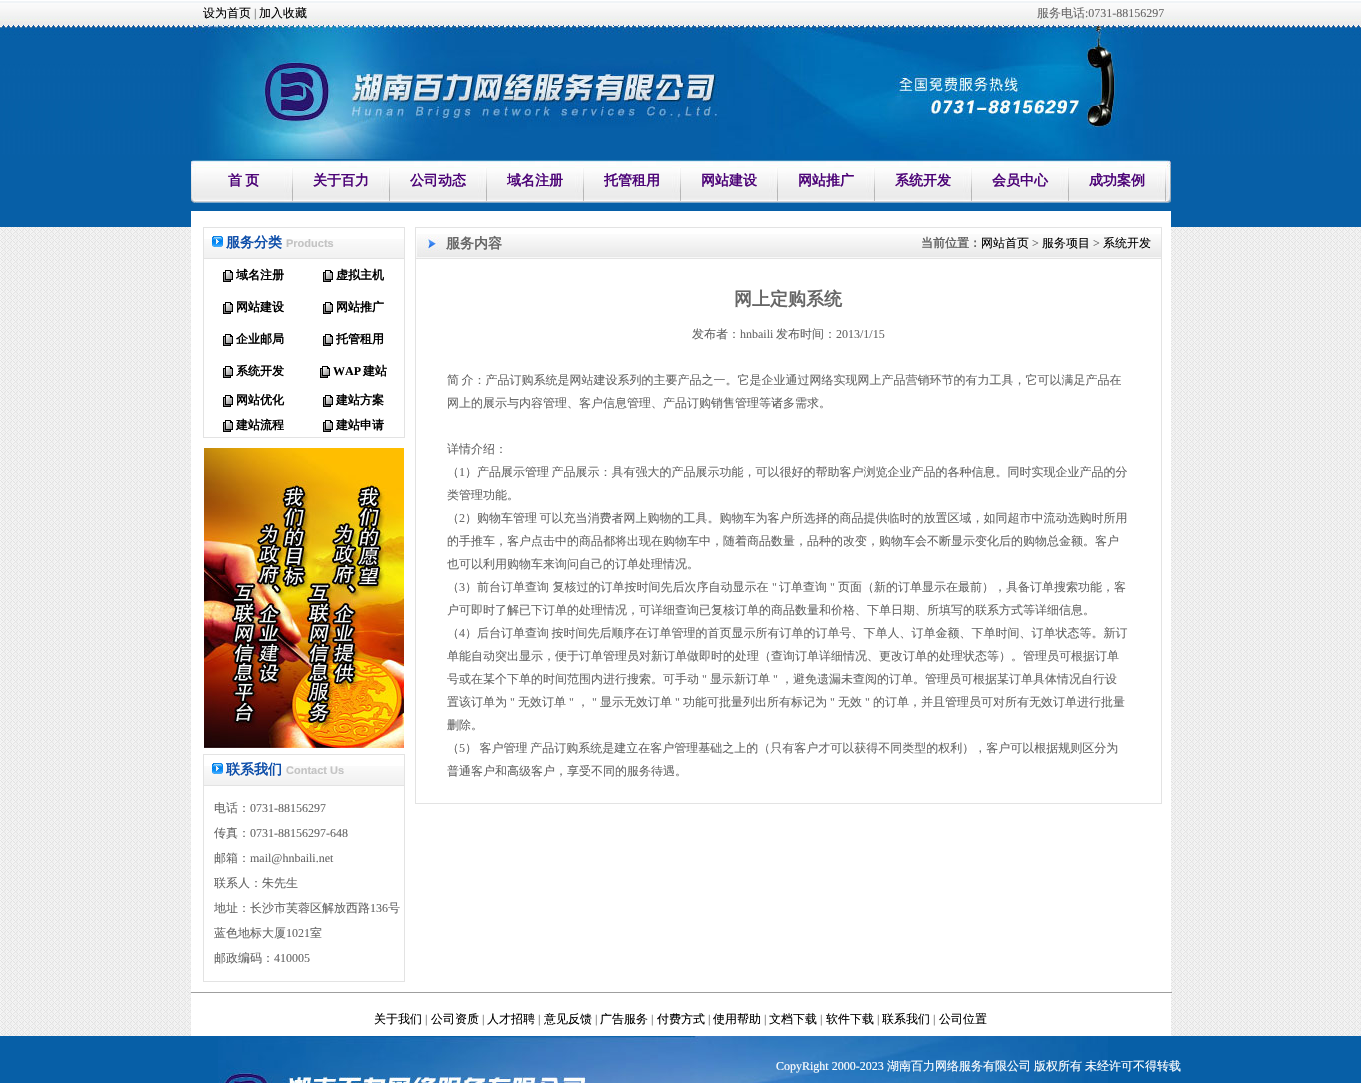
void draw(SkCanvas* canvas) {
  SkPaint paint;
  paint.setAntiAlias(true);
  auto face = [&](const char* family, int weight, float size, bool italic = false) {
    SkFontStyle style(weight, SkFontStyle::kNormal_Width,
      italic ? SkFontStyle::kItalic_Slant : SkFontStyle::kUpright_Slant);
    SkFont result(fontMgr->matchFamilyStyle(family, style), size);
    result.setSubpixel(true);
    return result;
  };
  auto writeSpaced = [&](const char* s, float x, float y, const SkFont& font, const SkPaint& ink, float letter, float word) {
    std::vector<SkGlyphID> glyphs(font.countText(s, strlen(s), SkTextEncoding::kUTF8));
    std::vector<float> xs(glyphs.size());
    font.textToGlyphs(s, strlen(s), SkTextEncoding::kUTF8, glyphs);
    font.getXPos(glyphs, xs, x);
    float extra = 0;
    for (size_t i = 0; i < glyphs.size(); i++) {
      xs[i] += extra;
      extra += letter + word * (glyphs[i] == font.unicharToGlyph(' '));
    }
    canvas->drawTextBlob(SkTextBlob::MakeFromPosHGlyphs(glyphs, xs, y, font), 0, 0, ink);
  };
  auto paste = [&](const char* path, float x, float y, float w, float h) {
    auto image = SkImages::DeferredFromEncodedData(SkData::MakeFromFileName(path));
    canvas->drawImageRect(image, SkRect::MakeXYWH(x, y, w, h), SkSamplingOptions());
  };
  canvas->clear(0xffffffff);
  paste("img/1.png", 0, 227, 1361, 809);
  paste("img/2.png", 0, 0, 1361, 227);
  paste("img/3.png", 191, 26, 952, 133);
  paste("img/4.png", 191, 160, 5, 43);
  paste("img/5.png", 196, 160, 97, 43);
  paste("img/5.png", 293, 160, 97, 43);
  paste("img/5.png", 390, 160, 97, 43);
  paste("img/5.png", 487, 160, 97, 43);
  paste("img/5.png", 584, 160, 97, 43);
  paste("img/5.png", 681, 160, 97, 43);
  paste("img/5.png", 778, 160, 97, 43);
  paste("img/5.png", 875, 160, 97, 43);
  paste("img/5.png", 972, 160, 97, 43);
  paste("img/5.png", 1069, 160, 97, 43);
  paste("img/6.png", 1166, 160, 5, 43);
  paint.setColor(0xffffffff);
  canvas->drawRect(SkRect::MakeXYWH(191, 211, 980, 825), paint);
  paint.setStroke(true);
  paint.setStrokeWidth(1);
  paint.setColor(0xffe3e3e3);
  canvas->drawRect(SkRect::MakeXYWH(203.5f, 227.5f, 201, 210), paint);
  paste("img/7.png", 204, 239, 200, 19);
  paint.setStroke(false);
  canvas->drawRect(SkRect::MakeXYWH(204, 258, 200, 1), paint);
  paste("img/8.png", 212, 236, 11, 11);
  paste("img/9.png", 223, 270, 10, 12);
  paste("img/9.png", 323, 270, 10, 12);
  paste("img/9.png", 223, 302, 10, 12);
  paste("img/9.png", 323, 302, 10, 12);
  paste("img/9.png", 223, 334, 10, 12);
  paste("img/9.png", 323, 334, 10, 12);
  paste("img/9.png", 223, 366, 10, 12);
  paste("img/9.png", 320, 366, 10, 12);
  paste("img/9.png", 223, 395, 10, 12);
  paste("img/9.png", 323, 395, 10, 12);
  paste("img/9.png", 223, 420, 10, 12);
  paste("img/9.png", 323, 420, 10, 12);
  paste("img/10.png", 204, 448, 200, 300);
  paint.setStroke(true);
  canvas->drawRect(SkRect::MakeXYWH(203.5f, 754.5f, 201, 227), paint);
  paste("img/7.png", 204, 766, 200, 19);
  paint.setStroke(false);
  canvas->drawRect(SkRect::MakeXYWH(204, 785, 200, 1), paint);
  paste("img/8.png", 212, 763, 11, 11);
  paint.setStroke(true);
  canvas->drawRect(SkRect::MakeXYWH(415.5f, 227.5f, 746, 576), paint);
  paste("img/11.png", 416, 234, 745, 25);
  paint.setStroke(false);
  {
    const struct { float x, y, w, h; SkColor color; } items[] = {
      {191, 992, 982, 1, 0xff9f9f9f},
      {1172, 992, 1, 1, 0xffeeeeee},
      {0, 1036, 1361, 47, 0xff075fa7},
    };
    for (auto [x, y, w, h, color] : items) {
      paint.setColor(color);
      canvas->drawRect(SkRect::MakeXYWH(x, y, w, h), paint);
    }
  }
  paste("img/12.png", 218, 1036, 890, 47);
  auto f0 = face("WenQuanYi Zen Hei", 500, 12);
  paint.setColor(0xff000000);
  canvas->drawString("设为首页", 203, 17, f0, paint);
  auto f1 = face("Liberation Serif", 400, 12);
  paint.setColor(0xff666666);
  canvas->drawString("|", 254, 17, f1, paint);
  paint.setColor(0xff000000);
  canvas->drawString("加入收藏", 259, 17, f0, paint);
  paint.setColor(0xff666666);
  canvas->drawString("服务电话", 1037, 17, f0, paint);
  canvas->drawString(":0731-88156297", 1085, 17, f1, paint);
  auto f2 = face("WenQuanYi Zen Hei", 700, 14);
  paint.setColor(0xff4d0478);
  writeSpaced("首 页", 228, 185, f2, paint, 0, -1);
  {
    const struct { const char* s; float x, y; } items[] = {
      {"关于百力", 313, 185},
      {"公司动态", 410, 185},
      {"域名注册", 507, 185},
      {"托管租用", 604, 185},
      {"网站建设", 701, 185},
      {"网站推广", 798, 185},
      {"系统开发", 895, 185},
      {"会员中心", 992, 185},
      {"成功案例", 1089, 185},
    };
    for (auto [s, x, y] : items) {
      canvas->drawString(s, x, y, f2, paint);
    }
  }
  paint.setColor(0xff0c4da9);
  canvas->drawString("服务分类", 226, 247, f2, paint);
  auto f3 = face("Liberation Sans", 700, 11);
  paint.setColor(0xffc4c4c4);
  canvas->drawString("Products", 286, 247, f3, paint);
  auto f4 = face("WenQuanYi Zen Hei", 700, 12);
  paint.setColor(0xff000000);
  {
    const struct { const char* s; float x, y; } items[] = {
      {"域名注册", 236, 279},
      {"虚拟主机", 336, 279},
      {"网站建设", 236, 311},
      {"网站推广", 336, 311},
      {"企业邮局", 236, 343},
      {"托管租用", 336, 343},
      {"系统开发", 236, 375},
    };
    for (auto [s, x, y] : items) {
      canvas->drawString(s, x, y, f4, paint);
    }
  }
  auto f5 = face("Liberation Serif", 700, 12);
  canvas->drawString("WAP", 333, 375, f5, paint);
  {
    const struct { const char* s; float x, y; } items[] = {
      {"建站", 363, 375},
      {"网站优化", 236, 404},
      {"建站方案", 336, 404},
      {"建站流程", 236, 429},
      {"建站申请", 336, 429},
    };
    for (auto [s, x, y] : items) {
      canvas->drawString(s, x, y, f4, paint);
    }
  }
  paint.setColor(0xff0c4da9);
  canvas->drawString("联系我们", 226, 774, f2, paint);
  paint.setColor(0xffc4c4c4);
  canvas->drawString("Contact Us", 286, 774, f3, paint);
  paint.setColor(0xff666666);
  canvas->drawString("电话：", 214, 812, f0, paint);
  canvas->drawString("0731-88156297", 250, 812, f1, paint);
  canvas->drawString("传真：", 214, 837, f0, paint);
  canvas->drawString("0731-88156297-648", 250, 837, f1, paint);
  canvas->drawString("邮箱：", 214, 862, f0, paint);
  canvas->drawString("mail@hnbaili.net", 250, 862, f1, paint);
  canvas->drawString("联系人：朱先生", 214, 887, f0, paint);
  canvas->drawString("地址：长沙市芙蓉区解放西路", 214, 912, f0, paint);
  canvas->drawString("136", 370, 912, f1, paint);
  canvas->drawString("号", 388, 912, f0, paint);
  canvas->drawString("蓝色地标大厦", 214, 937, f0, paint);
  canvas->drawString("1021", 286, 937, f1, paint);
  canvas->drawString("室", 310, 937, f0, paint);
  canvas->drawString("邮政编码：", 214, 962, f0, paint);
  canvas->drawString("410005", 274, 962, f1, paint);
  canvas->drawString("服务内容", 446, 248, f2, paint);
  canvas->drawString("当前位置：", 921, 247, f4, paint);
  paint.setColor(0xff000000);
  canvas->drawString("网站首页", 981, 247, f0, paint);
  paint.setColor(0xff666666);
  canvas->drawString(">", 1032, 247, f1, paint);
  paint.setColor(0xff000000);
  canvas->drawString("服务项目", 1042, 247, f0, paint);
  paint.setColor(0xff666666);
  canvas->drawString(">", 1093, 247, f1, paint);
  paint.setColor(0xff000000);
  canvas->drawString("系统开发", 1103, 247, f0, paint);
  auto f6 = face("WenQuanYi Zen Hei", 700, 18);
  paint.setColor(0xff666666);
  canvas->drawString("网上定购系统", 734, 305, f6, paint);
  canvas->drawString("发布者：", 692, 338, f0, paint);
  canvas->drawString("hnbaili", 740, 338, f1, paint);
  canvas->drawString("发布时间：", 776, 338, f0, paint);
  canvas->drawString("2013/1/15", 836, 338, f1, paint);
  writeSpaced("简 介：产品订购系统是网站建设系列的主要产品之一。它是企业通过网络实现网上产品营销环节的有力工具，它可以满足产品在", 447, 384, f0, paint, 0, -1);
  {
    const struct { const char* s; float x, y; } items[] = {
      {"网上的展示与内容管理、客户信息管理、产品订购销售管理等诸多需求。", 447, 407},
      {"详情介绍：", 447, 453},
      {"（", 447, 476},
    };
    for (auto [s, x, y] : items) {
      canvas->drawString(s, x, y, f0, paint);
    }
  }
  canvas->drawString("1", 459, 476, f1, paint);
  writeSpaced("）产品展示管理 产品展示：具有强大的产品展示功能，可以很好的帮助客户浏览企业产品的各种信息。同时实现企业产品的分", 465, 476, f0, paint, 0, -1);
  canvas->drawString("类管理功能。", 447, 499, f0, paint);
  canvas->drawString("（", 447, 522, f0, paint);
  canvas->drawString("2", 459, 522, f1, paint);
  writeSpaced("）购物车管理 可以充当消费者网上购物的工具。购物车为客户所选择的商品提供临时的放置区域，如同超市中流动选购时所用", 465, 522, f0, paint, 0, -1);
  {
    const struct { const char* s; float x, y; } items[] = {
      {"的手推车，客户点击中的商品都将出现在购物车中，随着商品数量，品种的改变，购物车会不断显示变化后的购物总金额。客户", 447, 545},
      {"也可以利用购物车来询问自己的订单处理情况。", 447, 568},
      {"（", 447, 591},
    };
    for (auto [s, x, y] : items) {
      canvas->drawString(s, x, y, f0, paint);
    }
  }
  canvas->drawString("3", 459, 591, f1, paint);
  canvas->drawString("）前台订单查询 复核过的订单按时间先后次序自动显示在", 465, 591, f0, paint);
  canvas->drawString("\"", 772, 591, f1, paint);
  canvas->drawString("订单查询", 779, 591, f0, paint);
  canvas->drawString("\"", 830, 591, f1, paint);
  {
    const struct { const char* s; float x, y; } items[] = {
      {"页面（新的订单显示在最前），具备订单搜索功能，客", 838, 591},
      {"户可即时了解已下订单的处理情况，可详细查询已复核订单的商品数量和价格、下单日期、所填写的联系方式等详细信息。", 447, 614},
      {"（", 447, 637},
    };
    for (auto [s, x, y] : items) {
      canvas->drawString(s, x, y, f0, paint);
    }
  }
  canvas->drawString("4", 459, 637, f1, paint);
  writeSpaced("）后台订单查询 按时间先后顺序在订单管理的首页显示所有订单的订单号、下单人、订单金额、下单时间、订单状态等。新订", 465, 637, f0, paint, 0, -1);
  canvas->drawString("单能自动突出显示，便于订单管理员对新订单做即时的处理（查询订单详细情况、更改订单的处理状态等）。管理员可根据订单", 447, 660, f0, paint);
  canvas->drawString("号或在某个下单的时间范围内进行搜索。可手动", 447, 683, f0, paint);
  canvas->drawString("\"", 702, 683, f1, paint);
  canvas->drawString("显示新订单", 710, 683, f0, paint);
  canvas->drawString("\"", 773, 683, f1, paint);
  canvas->drawString("，避免遗漏未查阅的订单。管理员可根据某订单具体情况自行设", 781, 683, f0, paint);
  canvas->drawString("置该订单为", 447, 706, f0, paint);
  canvas->drawString("\"", 510, 706, f1, paint);
  canvas->drawString("无效订单", 518, 706, f0, paint);
  canvas->drawString("\"", 569, 706, f1, paint);
  canvas->drawString("\"", 592, 706, f1, paint);
  canvas->drawString("显示无效订单", 600, 706, f0, paint);
  canvas->drawString("\"", 675, 706, f1, paint);
  canvas->drawString("功能可批量列出所有标记为", 683, 706, f0, paint);
  canvas->drawString("\"", 830, 706, f1, paint);
  canvas->drawString("无效", 838, 706, f0, paint);
  canvas->drawString("\"", 865, 706, f1, paint);
  {
    const struct { const char* s; float x, y; } items[] = {
      {"的订单，并且管理员可对所有无效订单进行批量", 873, 706},
      {"，", 577, 706},
      {"删除。", 447, 729},
      {"（", 447, 752},
    };
    for (auto [s, x, y] : items) {
      canvas->drawString(s, x, y, f0, paint);
    }
  }
  canvas->drawString("5", 459, 752, f1, paint);
  writeSpaced("） 客户管理 产品订购系统是建立在客户管理基础之上的（只有客户才可以获得不同类型的权利），客户可以根据规则区分为", 465, 752, f0, paint, 0, -1);
  canvas->drawString("普通客户和高级客户，享受不同的服务待遇。", 447, 775, f0, paint);
  paint.setColor(0xff000000);
  canvas->drawString("关于我们", 374, 1023, f0, paint);
  paint.setColor(0xff666666);
  canvas->drawString("|", 425, 1023, f1, paint);
  paint.setColor(0xff000000);
  canvas->drawString("公司资质", 431, 1023, f0, paint);
  paint.setColor(0xff666666);
  canvas->drawString("|", 482, 1023, f1, paint);
  paint.setColor(0xff000000);
  canvas->drawString("人才招聘", 487, 1023, f0, paint);
  paint.setColor(0xff666666);
  canvas->drawString("|", 538, 1023, f1, paint);
  paint.setColor(0xff000000);
  canvas->drawString("意见反馈", 544, 1023, f0, paint);
  paint.setColor(0xff666666);
  canvas->drawString("|", 595, 1023, f1, paint);
  paint.setColor(0xff000000);
  canvas->drawString("广告服务", 600, 1023, f0, paint);
  paint.setColor(0xff666666);
  canvas->drawString("|", 651, 1023, f1, paint);
  paint.setColor(0xff000000);
  canvas->drawString("付费方式", 657, 1023, f0, paint);
  paint.setColor(0xff666666);
  canvas->drawString("|", 708, 1023, f1, paint);
  paint.setColor(0xff000000);
  canvas->drawString("使用帮助", 713, 1023, f0, paint);
  paint.setColor(0xff666666);
  canvas->drawString("|", 764, 1023, f1, paint);
  paint.setColor(0xff000000);
  canvas->drawString("文档下载", 769, 1023, f0, paint);
  paint.setColor(0xff666666);
  canvas->drawString("|", 820, 1023, f1, paint);
  paint.setColor(0xff000000);
  canvas->drawString("软件下载", 826, 1023, f0, paint);
  paint.setColor(0xff666666);
  canvas->drawString("|", 877, 1023, f1, paint);
  paint.setColor(0xff000000);
  canvas->drawString("联系我们", 882, 1023, f0, paint);
  paint.setColor(0xff666666);
  canvas->drawString("|", 933, 1023, f1, paint);
  paint.setColor(0xff000000);
  canvas->drawString("公司位置", 939, 1023, f0, paint);
  paint.setColor(0xffffffff);
  canvas->drawString("CopyRight 2000-2023", 776, 1070, f1, paint);
  {
    const struct { const char* s; float x, y; } items[] = {
      {"湖南百力网络服务有限公司", 887, 1070},
      {"版权所有", 1034, 1070},
      {"未经许可不得转载", 1085, 1070},
    };
    for (auto [s, x, y] : items) {
      canvas->drawString(s, x, y, f0, paint);
    }
  }
}
